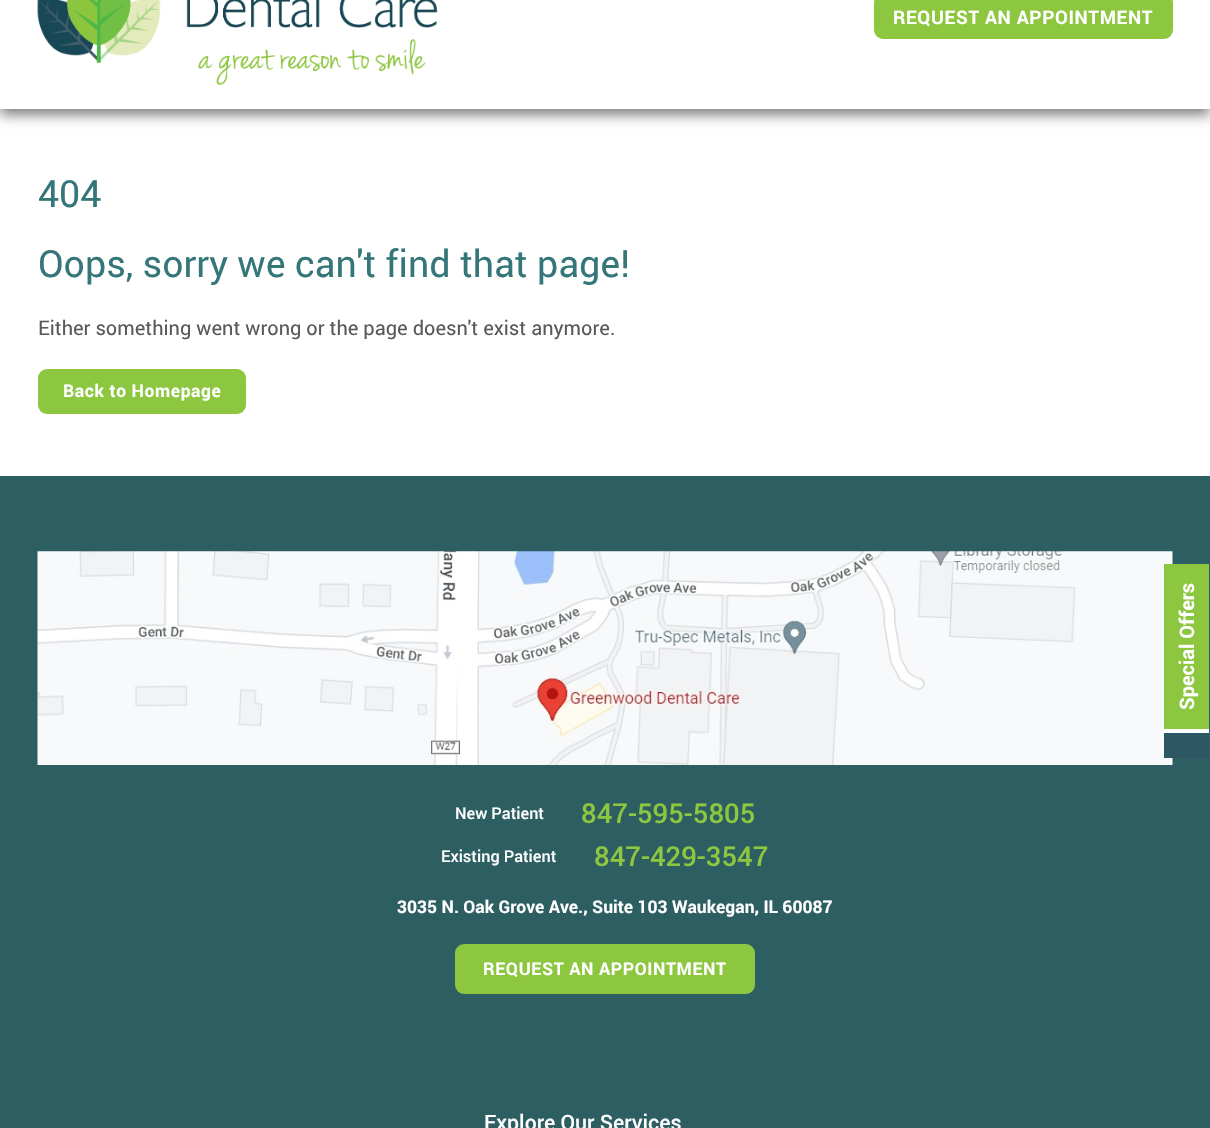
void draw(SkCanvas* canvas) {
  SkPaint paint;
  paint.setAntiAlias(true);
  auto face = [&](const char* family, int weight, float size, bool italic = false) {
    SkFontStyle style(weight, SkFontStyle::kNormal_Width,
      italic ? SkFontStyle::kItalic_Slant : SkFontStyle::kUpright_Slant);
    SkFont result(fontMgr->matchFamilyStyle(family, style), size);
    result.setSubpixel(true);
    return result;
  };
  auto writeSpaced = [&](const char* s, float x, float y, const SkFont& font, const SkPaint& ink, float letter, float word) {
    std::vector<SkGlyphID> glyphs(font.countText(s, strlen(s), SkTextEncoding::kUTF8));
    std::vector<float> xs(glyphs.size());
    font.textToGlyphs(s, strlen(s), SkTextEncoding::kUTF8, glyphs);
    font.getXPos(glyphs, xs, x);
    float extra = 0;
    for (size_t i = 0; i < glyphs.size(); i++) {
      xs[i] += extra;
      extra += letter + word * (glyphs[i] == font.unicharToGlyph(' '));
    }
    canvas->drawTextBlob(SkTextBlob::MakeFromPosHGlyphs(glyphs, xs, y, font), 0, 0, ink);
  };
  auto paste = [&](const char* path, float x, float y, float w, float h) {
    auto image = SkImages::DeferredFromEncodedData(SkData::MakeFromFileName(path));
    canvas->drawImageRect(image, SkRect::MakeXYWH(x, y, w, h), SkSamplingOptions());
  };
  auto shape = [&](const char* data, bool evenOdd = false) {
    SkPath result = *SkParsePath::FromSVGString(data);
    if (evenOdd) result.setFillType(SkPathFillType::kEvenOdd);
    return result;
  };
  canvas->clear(0xffffffff);
  canvas->save();
  canvas->clipPath(shape("M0 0H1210V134H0ZM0-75H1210V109H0Z", true), true);
  paint.setColor(0x80000000);
  paint.setMaskFilter(SkMaskFilter::MakeBlur(kNormal_SkBlurStyle, 6));
  canvas->drawRect(SkRect::MakeXYWH(0, -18, 1210, 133), paint);
  paint.setMaskFilter(nullptr);
  canvas->restore();
  paste("img/1.png", 37, 0, 401, 85);
  paint.setColor(0xff8dc63f);
  canvas->drawRoundRect(SkRect::MakeXYWH(874, -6, 299, 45), 9, 9, paint);
  canvas->drawRoundRect(SkRect::MakeXYWH(38, 369, 208, 45), 9, 9, paint);
  paint.setColor(0xff2c5e62);
  canvas->drawRect(SkRect::MakeXYWH(0, 476, 1210, 652), paint);
  paste("img/2.png", 37, 551, 1136, 214);
  {
    const struct { float x, y, w, h; SkColor color; } items[] = {
      {1164, 564, 45, 165, 0xff8dc63f},
      {1164, 729, 45, 4, 0xffffffff},
      {1164, 733, 45, 25, 0xff2c5763},
    };
    for (auto [x, y, w, h, color] : items) {
      paint.setColor(color);
      canvas->drawRect(SkRect::MakeXYWH(x, y, w, h), paint);
    }
  }
  paint.setColor(0xff8dc63f);
  canvas->drawRoundRect(SkRect::MakeXYWH(456.5f, 945.5f, 297, 47), 7.5f, 7.5f, paint);
  paint.setStroke(true);
  paint.setStrokeWidth(3);
  canvas->drawRoundRect(SkRect::MakeXYWH(456.5f, 945.5f, 297, 47), 7.5f, 7.5f, paint);
  auto f0 = face("Roboto", 700, 18.75f);
  paint.setStroke(false);
  paint.setColor(0xffffffff);
  writeSpaced("REQUEST AN APPOINTMENT", 893, 24, f0, paint, 0.6f, 0);
  auto f1 = face("Roboto", 400, 37.5f);
  paint.setColor(0xff357678);
  canvas->drawString("404", 38, 207, f1, paint);
  canvas->drawString("Oops, sorry we can't find that page!", 38, 277, f1, paint);
  auto f2 = face("Roboto", 400, 20);
  paint.setColor(0xff595959);
  canvas->drawString("Either something went wrong or the page doesn't exist anymore.", 38, 335, f2, paint);
  auto f3 = face("Roboto", 700, 17.5f);
  paint.setColor(0xffffffff);
  writeSpaced("Back to Homepage", 63, 397, f3, paint, 0.6f, 0);
  auto f4 = face("Roboto", 700, 20);
  canvas->save();
  canvas->rotate(-90, 1194, 710);
  canvas->drawString("Special Offers", 1194, 710, f4, paint);
  canvas->restore();
  auto f5 = face("Roboto", 500, 16.25f);
  canvas->drawString("New Patient", 455, 819, f5, paint);
  auto f6 = face("Roboto", 500, 27.5f);
  paint.setColor(0xff8dc63f);
  canvas->drawString("847-595-5805", 581, 823, f6, paint);
  paint.setColor(0xffffffff);
  canvas->drawString("Existing Patient", 441, 862, f5, paint);
  paint.setColor(0xff8dc63f);
  canvas->drawString("847-429-3547", 594, 866, f6, paint);
  paint.setColor(0xffffffff);
  canvas->drawString("3035 N. Oak Grove Ave., Suite 103 Waukegan, IL 60087", 397, 913, f3, paint);
  writeSpaced("REQUEST AN APPOINTMENT", 483, 975, f3, paint, 0.6f, 0);
  auto f7 = face("Roboto", 500, 21.25f);
  canvas->drawString("Explore Our Services", 484, 1130, f7, paint);
}
